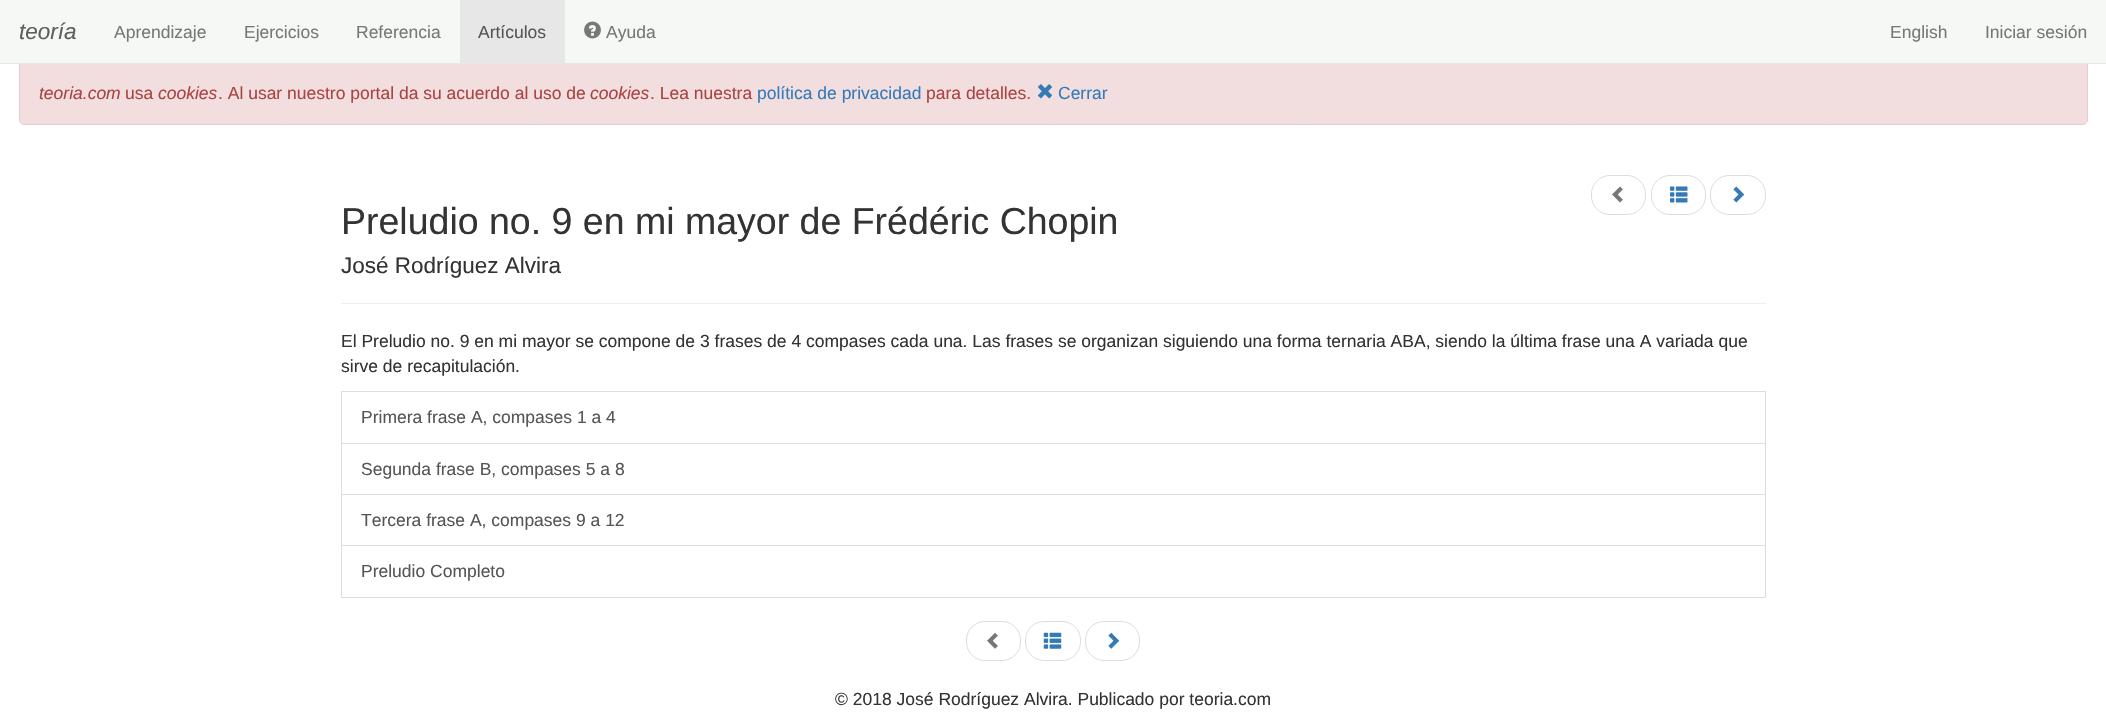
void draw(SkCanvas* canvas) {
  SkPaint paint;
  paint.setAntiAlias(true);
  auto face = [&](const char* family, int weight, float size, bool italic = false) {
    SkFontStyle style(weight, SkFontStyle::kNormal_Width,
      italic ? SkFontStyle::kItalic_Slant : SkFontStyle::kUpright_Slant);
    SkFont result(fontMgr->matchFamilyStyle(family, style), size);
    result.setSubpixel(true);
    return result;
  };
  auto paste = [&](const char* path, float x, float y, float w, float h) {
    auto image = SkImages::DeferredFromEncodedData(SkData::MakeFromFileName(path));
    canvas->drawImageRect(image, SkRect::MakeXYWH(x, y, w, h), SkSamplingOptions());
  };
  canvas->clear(0xffffffff);
  paint.setColor(0xfff2dede);
  canvas->drawRoundRect(SkRect::MakeXYWH(19.5f, 60.5f, 2068, 64), 4.5f, 4.5f, paint);
  paint.setStroke(true);
  paint.setStrokeWidth(1);
  paint.setColor(0xffebccd1);
  canvas->drawRoundRect(SkRect::MakeXYWH(19.5f, 60.5f, 2068, 64), 4.5f, 4.5f, paint);
  paint.setStroke(false);
  {
    const struct { float x, y, w, h; SkColor color; } items[] = {
      {0, 0, 2106, 63, 0xf5f6f8f6},
      {0, 63, 2106, 1, 0xffe7e7e7},
      {460, 0, 105, 63, 0xffe7e7e7},
    };
    for (auto [x, y, w, h, color] : items) {
      paint.setColor(color);
      canvas->drawRect(SkRect::MakeXYWH(x, y, w, h), paint);
    }
  }
  paste("img/1.png", 584, 21, 17, 18);
  paste("img/2.png", 1037, 84, 16, 15);
  paint.setStroke(true);
  paint.setColor(0xffdddddd);
  canvas->drawRoundRect(SkRect::MakeXYWH(1591.5f, 175.5f, 54, 39), 18.5f, 18.5f, paint);
  paste("img/3.png", 1612, 186, 11, 17);
  canvas->drawRoundRect(SkRect::MakeXYWH(1651.5f, 175.5f, 54, 39), 18.5f, 18.5f, paint);
  paste("img/4.png", 1670, 186, 18, 17);
  canvas->drawRoundRect(SkRect::MakeXYWH(1710.5f, 175.5f, 55, 39), 18.5f, 18.5f, paint);
  paste("img/5.png", 1733, 186, 12, 17);
  paint.setStroke(false);
  paint.setColor(0xffeeeeee);
  canvas->drawRect(SkRect::MakeXYWH(341, 303, 1425, 1), paint);
  paint.setStroke(true);
  paint.setColor(0xffdddddd);
  canvas->drawRect(SkRect::MakeXYWH(341.5f, 391.5f, 1424, 52), paint);
  canvas->drawRect(SkRect::MakeXYWH(341.5f, 443.5f, 1424, 51), paint);
  canvas->drawRect(SkRect::MakeXYWH(341.5f, 494.5f, 1424, 51), paint);
  canvas->drawRect(SkRect::MakeXYWH(341.5f, 545.5f, 1424, 52), paint);
  canvas->drawRoundRect(SkRect::MakeXYWH(966.5f, 621.5f, 54, 39), 18.5f, 18.5f, paint);
  paste("img/6.png", 987, 632, 11, 17);
  canvas->drawRoundRect(SkRect::MakeXYWH(1025.5f, 621.5f, 55, 39), 18.5f, 18.5f, paint);
  paste("img/7.png", 1043, 632, 19, 17);
  canvas->drawRoundRect(SkRect::MakeXYWH(1085.5f, 621.5f, 54, 39), 18.5f, 18.5f, paint);
  paste("img/8.png", 1108, 632, 12, 17);
  auto f0 = face("Liberation Sans", 400, 22.5f, true);
  paint.setStroke(false);
  paint.setColor(0xff5e5e5e);
  canvas->drawString("teoría", 19, 39, f0, paint);
  auto f1 = face("Liberation Sans", 400, 17.5f);
  paint.setColor(0xff777777);
  {
    const struct { const char* s; float x, y; } items[] = {
      {"Aprendizaje", 114, 38},
      {"Ejercicios", 244, 38},
      {"Referencia", 356, 38},
    };
    for (auto [s, x, y] : items) {
      canvas->drawString(s, x, y, f1, paint);
    }
  }
  paint.setColor(0xff555555);
  canvas->drawString("Artículos", 478, 38, f1, paint);
  paint.setColor(0xff777777);
  {
    const struct { const char* s; float x, y; } items[] = {
      {"Ayuda", 606, 38},
      {"English", 1890, 38},
      {"Iniciar sesión", 1985, 38},
    };
    for (auto [s, x, y] : items) {
      canvas->drawString(s, x, y, f1, paint);
    }
  }
  auto f2 = face("Liberation Sans", 400, 17.5f, true);
  paint.setColor(0xffa94442);
  canvas->drawString("teoria.com", 39, 99, f2, paint);
  canvas->drawString("usa", 125, 99, f1, paint);
  canvas->drawString("cookies", 158, 99, f2, paint);
  canvas->drawString(". Al usar nuestro portal da su acuerdo al uso de", 218, 99, f1, paint);
  canvas->drawString("cookies", 590, 99, f2, paint);
  canvas->drawString(". Lea nuestra", 650, 99, f1, paint);
  paint.setColor(0xff337ab7);
  canvas->drawString("política de privacidad", 757, 99, f1, paint);
  paint.setColor(0xffa94442);
  canvas->drawString("para detalles.", 926, 99, f1, paint);
  paint.setColor(0xff337ab7);
  canvas->drawString("Cerrar", 1058, 99, f1, paint);
  auto f3 = face("Liberation Sans", 400, 37.5f);
  paint.setColor(0xff333333);
  canvas->drawString("Preludio no. 9 en mi mayor de Frédéric Chopin", 341, 234, f3, paint);
  auto f4 = face("Liberation Sans", 400, 22.5f);
  canvas->drawString("José Rodríguez Alvira", 341, 273, f4, paint);
  canvas->drawString("El Preludio no. 9 en mi mayor se compone de 3 frases de 4 compases cada una. Las frases se organizan siguiendo una forma ternaria ABA, siendo la última frase una A variada que", 341, 347, f1, paint);
  canvas->drawString("sirve de recapitulación.", 341, 372, f1, paint);
  paint.setColor(0xff555555);
  {
    const struct { const char* s; float x, y; } items[] = {
      {"Primera frase A, compases 1 a 4", 361, 423},
      {"Segunda frase B, compases 5 a 8", 361, 475},
      {"Tercera frase A, compases 9 a 12", 361, 526},
      {"Preludio Completo", 361, 577},
    };
    for (auto [s, x, y] : items) {
      canvas->drawString(s, x, y, f1, paint);
    }
  }
  paint.setColor(0xff333333);
  canvas->drawString("© 2018 José Rodríguez Alvira. Publicado por teoria.com", 835, 705, f1, paint);
}
